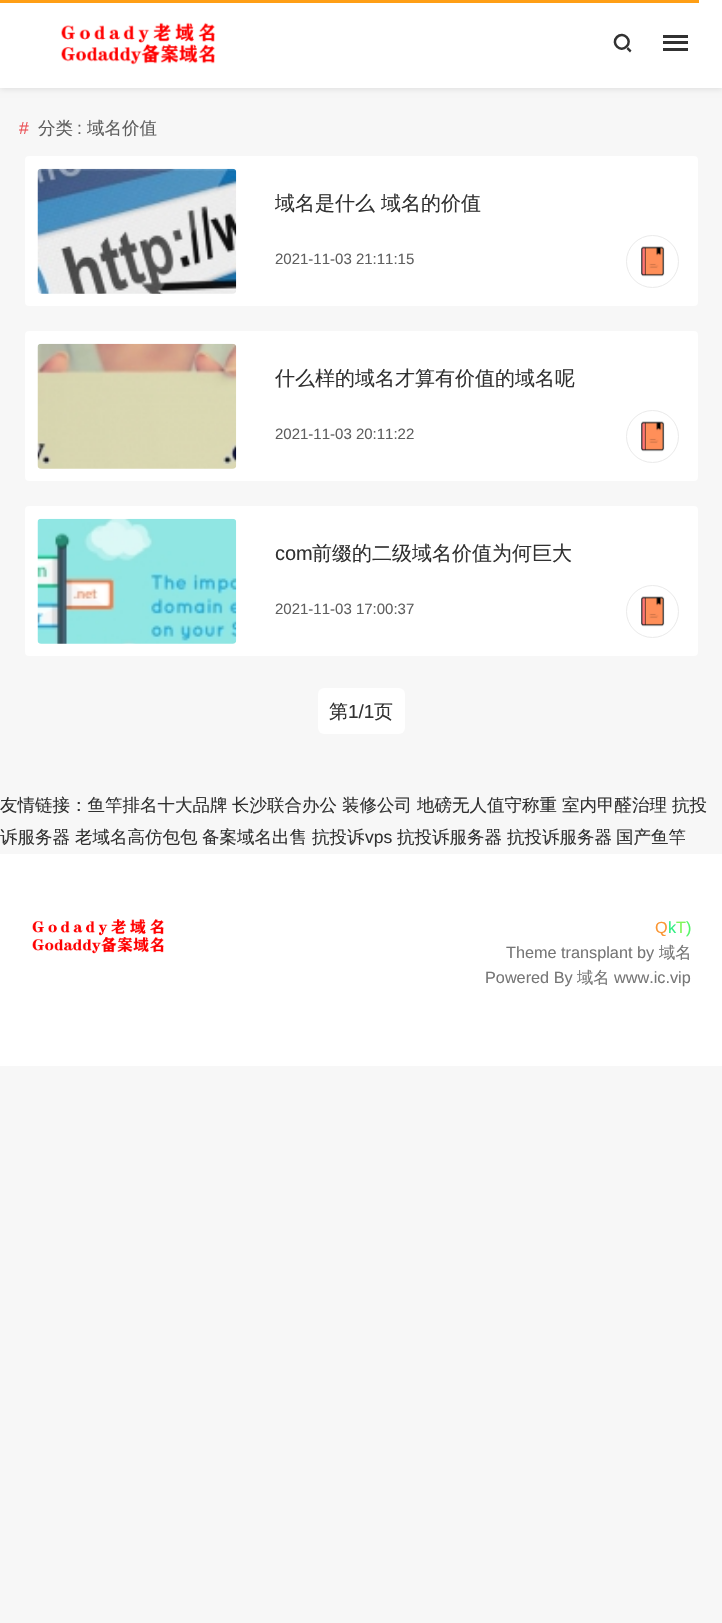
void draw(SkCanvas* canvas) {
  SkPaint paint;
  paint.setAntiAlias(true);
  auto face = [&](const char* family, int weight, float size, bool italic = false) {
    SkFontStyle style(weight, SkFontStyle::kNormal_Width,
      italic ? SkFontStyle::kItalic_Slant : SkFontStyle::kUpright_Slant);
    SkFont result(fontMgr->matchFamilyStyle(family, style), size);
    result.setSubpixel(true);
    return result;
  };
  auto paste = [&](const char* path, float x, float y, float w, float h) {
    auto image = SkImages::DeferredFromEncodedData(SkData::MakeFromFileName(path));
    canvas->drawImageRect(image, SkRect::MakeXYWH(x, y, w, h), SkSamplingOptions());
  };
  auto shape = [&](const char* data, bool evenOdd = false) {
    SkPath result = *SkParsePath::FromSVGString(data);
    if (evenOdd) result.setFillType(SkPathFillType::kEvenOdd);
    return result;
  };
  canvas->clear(0xfff7f7f7);
  paint.setColor(0x1a000000);
  paint.setMaskFilter(SkMaskFilter::MakeBlur(kNormal_SkBlurStyle, 3));
  canvas->drawRect(SkRect::MakeXYWH(0, 1, 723, 88), paint);
  paint.setMaskFilter(nullptr);
  paint.setColor(0xffffffff);
  canvas->drawRect(SkRect::MakeXYWH(0, 0, 722, 88), paint);
  paste("img/1.png", 61, 22, 154, 43);
  paint.setStroke(true);
  paint.setStrokeWidth(2.5f);
  paint.setColor(0xff313131);
  canvas->drawPath(shape("M617 37C623.5 30.5 633 40.5 626.5 46.5C620.5 53 610.5 43.5 617 37Z"), paint);
  paint.setStroke(false);
  canvas->drawPath(shape("M626.5 49L628 47L631.5 50.5L630 52.5Z"), paint);
  {
    const struct { float x, y, w, h; SkColor color; } items[] = {
      {663, 35, 25, 3, 0xff313131},
      {663, 41, 25, 3, 0xff313131},
      {663, 48, 25, 3, 0xff313131},
      {0, 0, 699, 3, 0xffff9f15},
    };
    for (auto [x, y, w, h, color] : items) {
      paint.setColor(color);
      canvas->drawRect(SkRect::MakeXYWH(x, y, w, h), paint);
    }
  }
  paint.setColor(0xffffffff);
  canvas->drawRoundRect(SkRect::MakeXYWH(25, 156, 673, 150), 4, 4, paint);
  paste("img/2.png", 37, 168, 200, 126);
  paste("img/3.png", 641, 246, 24, 31);
  paint.setStroke(true);
  paint.setStrokeWidth(1);
  paint.setColor(0xffeaeaea);
  canvas->drawCircle(652.5f, 261.5f, 26, paint);
  paint.setStroke(false);
  paint.setColor(0xffffffff);
  canvas->drawRoundRect(SkRect::MakeXYWH(25, 331, 673, 150), 4, 4, paint);
  paste("img/4.png", 37, 343, 200, 126);
  paste("img/3.png", 641, 421, 24, 31);
  paint.setStroke(true);
  paint.setColor(0xffeaeaea);
  canvas->drawCircle(652.5f, 436.5f, 26, paint);
  paint.setStroke(false);
  paint.setColor(0xffffffff);
  canvas->drawRoundRect(SkRect::MakeXYWH(25, 506, 673, 150), 4, 4, paint);
  paste("img/5.png", 37, 518, 200, 126);
  paste("img/3.png", 641, 596, 24, 31);
  paint.setStroke(true);
  paint.setColor(0xffeaeaea);
  canvas->drawCircle(652.5f, 611.5f, 26, paint);
  paint.setStroke(false);
  paint.setColor(0xffffffff);
  canvas->drawRoundRect(SkRect::MakeXYWH(318, 688, 87, 46), 6, 6, paint);
  canvas->drawRect(SkRect::MakeXYWH(0, 854, 722, 212), paint);
  paste("img/6.png", 32, 919, 132, 35);
  auto f0 = face("Liberation Sans", 400, 17.5f);
  paint.setColor(0xffeb5055);
  canvas->drawString("#", 19, 134, f0, paint);
  auto f1 = face("WenQuanYi Zen Hei", 500, 17.5f);
  paint.setColor(0xff5f5f5f);
  canvas->drawString("分类", 38, 134, f1, paint);
  canvas->drawString(":", 77, 134, f0, paint);
  canvas->drawString("域名价值", 87, 134, f1, paint);
  auto f2 = face("WenQuanYi Zen Hei", 500, 20);
  paint.setColor(0xff313131);
  canvas->drawString("域名是什么 域名的价值", 275, 210, f2, paint);
  auto f3 = face("Liberation Sans", 400, 15);
  paint.setColor(0xff5f5f5f);
  canvas->drawString("2021-11-03 21:11:15", 275, 264, f3, paint);
  paint.setColor(0xff313131);
  canvas->drawString("什么样的域名才算有价值的域名呢", 275, 385, f2, paint);
  paint.setColor(0xff5f5f5f);
  canvas->drawString("2021-11-03 20:11:22", 275, 439, f3, paint);
  auto f4 = face("Liberation Sans", 400, 20);
  paint.setColor(0xff313131);
  canvas->drawString("com", 275, 560, f4, paint);
  canvas->drawString("前缀的二级域名价值为何巨大", 312, 560, f2, paint);
  paint.setColor(0xff5f5f5f);
  canvas->drawString("2021-11-03 17:00:37", 275, 614, f3, paint);
  auto f5 = face("WenQuanYi Zen Hei", 500, 19);
  paint.setColor(0xff313131);
  canvas->drawString("第", 329, 718, f5, paint);
  auto f6 = face("Liberation Sans", 400, 19);
  canvas->drawString("1/1", 348, 718, f6, paint);
  canvas->drawString("页", 374, 718, f5, paint);
  {
    const struct { const char* s; float x, y; } items[] = {
      {"友情链接：鱼竿排名十大品牌", 0, 811},
      {"长沙联合办公", 232, 811},
      {"装修公司", 342, 811},
      {"地磅无人值守称重", 417, 811},
      {"室内甲醛治理", 562, 811},
      {"抗投", 672, 811},
      {"诉服务器", 0, 843},
      {"老域名高仿包包", 75, 843},
      {"备案域名出售", 202, 843},
      {"抗投诉", 312, 843},
    };
    for (auto [s, x, y] : items) {
      canvas->drawString(s, x, y, f1, paint);
    }
  }
  canvas->drawString("vps", 365, 843, f0, paint);
  {
    const struct { const char* s; float x, y; } items[] = {
      {"抗投诉服务器", 397, 843},
      {"抗投诉服务器", 507, 843},
      {"国产鱼竿", 616, 843},
    };
    for (auto [s, x, y] : items) {
      canvas->drawString(s, x, y, f1, paint);
    }
  }
  auto f7 = face("Liberation Sans", 400, 16.25f);
  paint.setColor(0xfffb9633);
  canvas->drawString("Q", 655, 933, f7, paint);
  paint.setColor(0xff30ef82);
  canvas->drawString("k", 668, 933, f7, paint);
  paint.setColor(0xff7ff658);
  canvas->drawString("T", 676, 933, f7, paint);
  paint.setColor(0xff52f667);
  canvas->drawString(")", 686, 933, f7, paint);
  paint.setColor(0xff767676);
  canvas->drawString("Theme transplant by", 506, 958, f7, paint);
  auto f8 = face("WenQuanYi Zen Hei", 500, 16.25f);
  canvas->drawString("域名", 659, 958, f8, paint);
  canvas->drawString("Powered By", 485, 983, f7, paint);
  canvas->drawString("域名", 577, 983, f8, paint);
  canvas->drawString("www.ic.vip", 614, 983, f7, paint);
}
